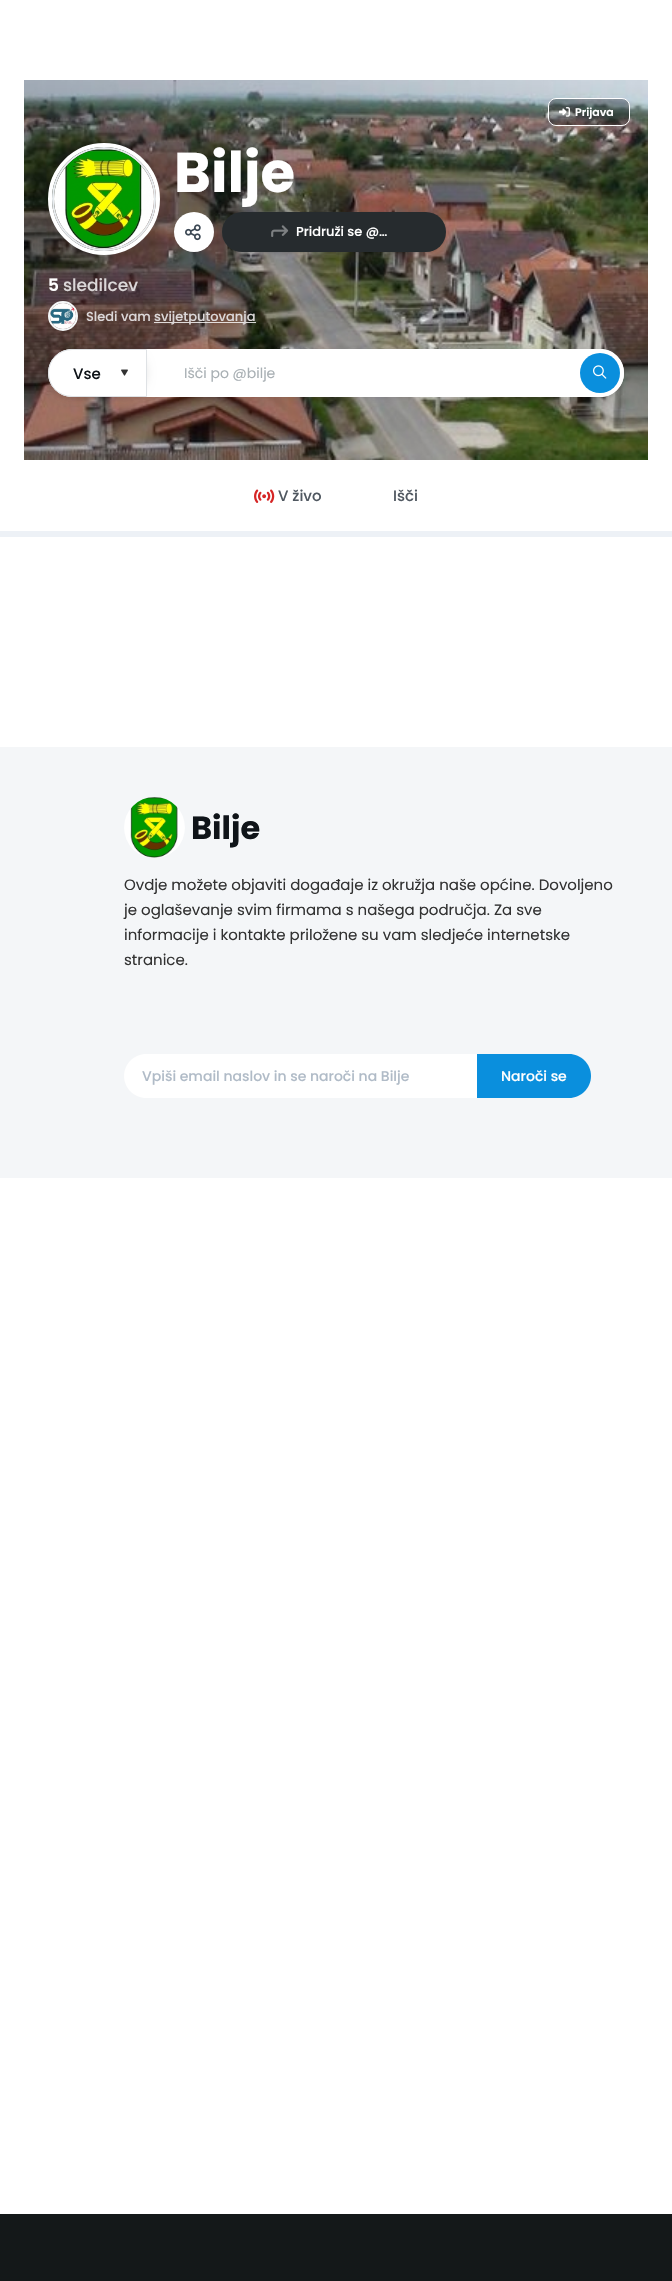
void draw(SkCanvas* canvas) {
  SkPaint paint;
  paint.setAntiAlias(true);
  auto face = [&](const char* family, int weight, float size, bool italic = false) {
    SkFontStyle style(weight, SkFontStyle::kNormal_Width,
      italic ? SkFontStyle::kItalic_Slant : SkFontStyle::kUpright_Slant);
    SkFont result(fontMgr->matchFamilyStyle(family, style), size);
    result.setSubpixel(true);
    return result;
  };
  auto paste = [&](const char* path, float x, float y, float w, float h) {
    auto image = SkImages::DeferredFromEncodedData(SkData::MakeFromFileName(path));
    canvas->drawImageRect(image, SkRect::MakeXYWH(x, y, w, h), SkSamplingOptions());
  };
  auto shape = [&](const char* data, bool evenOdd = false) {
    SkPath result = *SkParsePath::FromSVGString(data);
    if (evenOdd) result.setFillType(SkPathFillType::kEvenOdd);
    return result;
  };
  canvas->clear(0xffffffff);
  paste("img/1.png", 24, 80, 624, 380);
  paint.setColor(0x4d000000);
  canvas->drawRoundRect(SkRect::MakeXYWH(548.5f, 98.5f, 81, 27), 7.5f, 7.5f, paint);
  paint.setStroke(true);
  paint.setStrokeWidth(1);
  paint.setColor(0xffffffff);
  canvas->drawRoundRect(SkRect::MakeXYWH(548.5f, 98.5f, 81, 27), 7.5f, 7.5f, paint);
  paste("img/2.png", 559, 107, 11, 10);
  paint.setStrokeWidth(4);
  canvas->drawCircle(104, 199, 54, paint);
  paint.setStrokeWidth(2);
  paint.setColor(0xffe8ecef);
  canvas->drawCircle(104, 199, 51, paint);
  paste("img/3.png", 54, 149, 100, 100);
  paint.setStroke(false);
  paint.setColor(0xffffffff);
  canvas->drawCircle(194, 232, 20, paint);
  paste("img/4.png", 185, 224, 16, 17);
  paint.setColor(0x1a000000);
  paint.setMaskFilter(SkMaskFilter::MakeBlur(kNormal_SkBlurStyle, 1));
  canvas->drawRoundRect(SkRect::MakeXYWH(222, 213, 224, 40), 20, 20, paint);
  paint.setMaskFilter(nullptr);
  paint.setColor(0xff262b2e);
  canvas->drawRoundRect(SkRect::MakeXYWH(222, 212, 224, 40), 20, 20, paint);
  paste("img/5.png", 271, 225, 18, 12);
  paint.setStroke(true);
  paint.setColor(0xfff5f7f8);
  canvas->drawCircle(63, 316, 14, paint);
  paste("img/6.png", 50, 303, 26, 26);
  paint.setStroke(false);
  paint.setColor(0xccffffff);
  canvas->drawRect(SkRect::MakeXYWH(154, 322, 102, 1), paint);
  paint.setColor(0x1a000000);
  paint.setMaskFilter(SkMaskFilter::MakeBlur(kNormal_SkBlurStyle, 4));
  canvas->drawRoundRect(SkRect::MakeXYWH(48, 349, 576, 48), 24, 24, paint);
  paint.setMaskFilter(nullptr);
  paint.setColor(0xffffffff);
  canvas->drawRoundRect(SkRect::MakeXYWH(48, 349, 576, 48), 24, 24, paint);
  paint.setColor(0x1a000000);
  paint.setMaskFilter(SkMaskFilter::MakeBlur(kNormal_SkBlurStyle, 4));
  canvas->drawRoundRect(SkRect::MakeXYWH(48, 349, 99, 48), 24, 24, paint);
  paint.setMaskFilter(nullptr);
  paint.setColor(0xffffffff);
  canvas->drawPath(shape("M72 349.5H146.5V396.5H72C59 396.5 48.5 386 48.5 373C48.5 360 59 349.5 72 349.5Z"), paint);
  paint.setStroke(true);
  paint.setStrokeWidth(1);
  paint.setColor(0xffdfe2e5);
  canvas->drawPath(shape("M72 349.5H146.5V396.5H72C59 396.5 48.5 386 48.5 373C48.5 360 59 349.5 72 349.5Z"), paint);
  paste("img/7.png", 121, 369, 7, 7);
  paint.setStroke(false);
  paint.setColor(0xffffffff);
  canvas->drawPath(shape("M580 349H600C613.5 349 624 359.5 624 373C624 386.5 613.5 397 600 397H580Z"), paint);
  paint.setColor(0xff0a8fdd);
  canvas->drawCircle(600, 373, 20, paint);
  paste("img/8.png", 593, 365, 14, 14);
  paste("img/9.png", 254, 489, 21, 14);
  paint.setColor(0xffedf1f6);
  canvas->drawRect(SkRect::MakeXYWH(0, 531, 672, 6), paint);
  paint.setColor(0xfff4f6f8);
  canvas->drawRect(SkRect::MakeXYWH(0, 747, 672, 431), paint);
  paint.setColor(0xffffffff);
  canvas->drawCircle(154.5f, 827.5f, 30.5f, paint);
  paste("img/10.png", 130, 797, 48, 61);
  canvas->drawPath(shape("M146 1054H477V1098H146C134 1098 124 1088 124 1076C124 1064 134 1054 146 1054Z"), paint);
  paint.setColor(0xff0a8fdd);
  canvas->drawPath(shape("M477 1054H569C581 1054 591 1064 591 1076C591 1088 581 1098 569 1098H477Z"), paint);
  paint.setColor(0xff141819);
  canvas->drawRect(SkRect::MakeXYWH(0, 2214, 672, 67), paint);
  auto f0 = face("Poppins", 600, 11);
  paint.setColor(0xffffffff);
  canvas->drawString("Prijava", 575, 116, f0, paint);
  auto f1 = face("Poppins", 700, 56);
  canvas->drawString("Bilje", 174, 192, f1, paint);
  auto f2 = face("Poppins", 500, 13);
  canvas->drawString("Pridruži se @…", 296, 236, f2, paint);
  auto f3 = face("Poppins", 600, 17);
  canvas->drawString("5", 48, 291, f3, paint);
  auto f4 = face("Poppins", 500, 17);
  paint.setColor(0xffdcd8d9);
  canvas->drawString("sledilcev", 63, 291, f4, paint);
  canvas->drawString("Sledi vam", 86, 321, f2, paint);
  canvas->drawString("svijetputovanja", 154, 321, f2, paint);
  auto f5 = face("Poppins", 500, 15);
  paint.setColor(0xff0f1419);
  canvas->drawString("Vse", 73, 379, f5, paint);
  auto f6 = face("Poppins", 400, 14);
  paint.setColor(0xffa9b0b4);
  canvas->drawString("Išči po @bilje", 184, 378, f6, paint);
  paint.setColor(0xff505861);
  canvas->drawString("V živo", 278, 501, f5, paint);
  canvas->drawString("Išči", 393, 501, f5, paint);
  auto f7 = face("Poppins", 700, 32);
  paint.setColor(0xff0f1419);
  canvas->drawString("Bilje", 191, 839, f7, paint);
  auto f8 = face("Poppins", 400, 15);
  paint.setColor(0xff323232);
  {
    const struct { const char* s; float x, y; } items[] = {
      {"Ovdje možete objaviti događaje iz okružja naše općine. Dovoljeno", 124, 890},
      {"je oglaševanje svim firmama s našega područja. Za sve", 124, 915},
      {"informacije i kontakte priložene su vam sledjeće internetske", 124, 940},
      {"stranice.", 124, 965},
    };
    for (auto [s, x, y] : items) {
      canvas->drawString(s, x, y, f8, paint);
    }
  }
  auto f9 = face("Poppins", 500, 14);
  paint.setColor(0xffb0bbc7);
  canvas->drawString("Vpiši email naslov in se naroči na Bilje", 142, 1081, f9, paint);
  paint.setColor(0xffffffff);
  canvas->drawString("Naroči se", 501, 1081, f9, paint);
}
